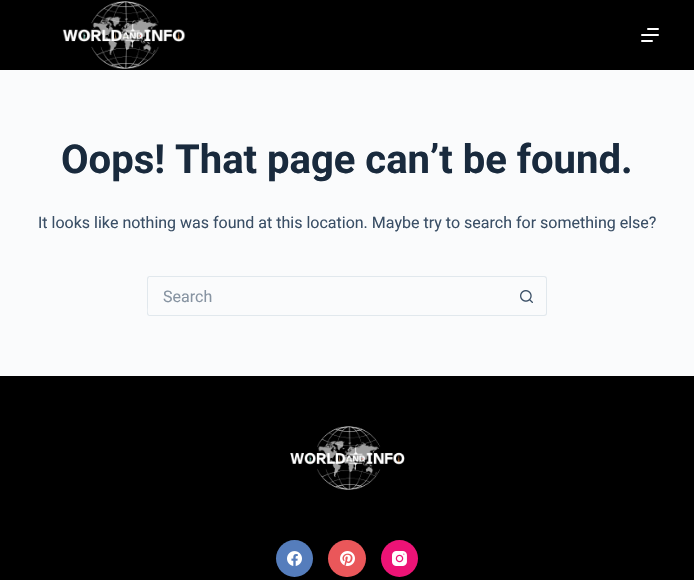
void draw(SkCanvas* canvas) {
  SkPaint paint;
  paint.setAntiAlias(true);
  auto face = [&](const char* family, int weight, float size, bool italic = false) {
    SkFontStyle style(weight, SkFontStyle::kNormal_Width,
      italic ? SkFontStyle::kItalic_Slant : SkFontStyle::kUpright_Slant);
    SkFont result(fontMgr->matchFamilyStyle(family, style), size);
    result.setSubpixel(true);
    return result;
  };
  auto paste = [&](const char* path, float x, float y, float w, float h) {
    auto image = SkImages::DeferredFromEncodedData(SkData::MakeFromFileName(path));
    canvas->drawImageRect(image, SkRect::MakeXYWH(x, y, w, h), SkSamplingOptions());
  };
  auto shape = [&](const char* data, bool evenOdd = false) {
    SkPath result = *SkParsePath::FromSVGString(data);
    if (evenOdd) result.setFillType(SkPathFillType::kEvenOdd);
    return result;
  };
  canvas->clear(0xfffafbfc);
  paint.setColor(0xff000000);
  canvas->drawRect(SkRect::MakeXYWH(0, 0, 694, 70), paint);
  paste("img/1.png", 62, 1, 124, 68);
  paint.setColor(0xffffffff);
  canvas->drawRoundRect(SkRect::MakeXYWH(647, 28, 12, 2), 1, 1, paint);
  canvas->drawRoundRect(SkRect::MakeXYWH(641, 34, 18, 2), 1, 1, paint);
  canvas->drawRoundRect(SkRect::MakeXYWH(641, 40, 12, 2), 1, 1, paint);
  paint.setColor(0xffe1e8ed);
  canvas->drawPath(shape("M150 276H507V316H150C148 316 147 315 147 313V279C147 277 148 276 150 276ZM150 277H507V315H149C147 313 148 308 148 307V279L149 277Z", true), paint);
  canvas->drawPath(shape("M507 276H544C546 276 547 277 547 279V313C547 315 546 316 544 316H507ZM507 277H544C545 277 546 278 546 279V313C546 314 545 315 544 315H507Z", true), paint);
  paste("img/2.png", 520, 290, 13, 13);
  paint.setColor(0xff000000);
  canvas->drawRect(SkRect::MakeXYWH(0, 376, 694, 204), paint);
  paste("img/3.png", 290, 426, 115, 64);
  paint.setColor(0xff557dbc);
  canvas->drawCircle(294.5f, 558.5f, 18.5f, paint);
  paste("img/4.png", 287, 551, 15, 15);
  paint.setColor(0xffea575a);
  canvas->drawRoundRect(SkRect::MakeXYWH(328, 540, 38, 37), 18.5f, 18.5f, paint);
  paste("img/5.png", 340, 551, 15, 15);
  paint.setColor(0xffed1376);
  canvas->drawCircle(399.5f, 558.5f, 18.5f, paint);
  paste("img/6.png", 392, 551, 15, 15);
  auto f0 = face("Roboto", 700, 40);
  paint.setColor(0xff192a3d);
  canvas->drawString("Oops! That page can’t be found.", 61, 173, f0, paint);
  auto f1 = face("Roboto", 400, 16);
  paint.setColor(0xff3a4f66);
  canvas->drawString("It looks like nothing was found at this location. Maybe try to search for something else?", 38, 228, f1, paint);
  paint.setColor(0xff8794a2);
  canvas->drawString("Search", 163, 302, f1, paint);
}
